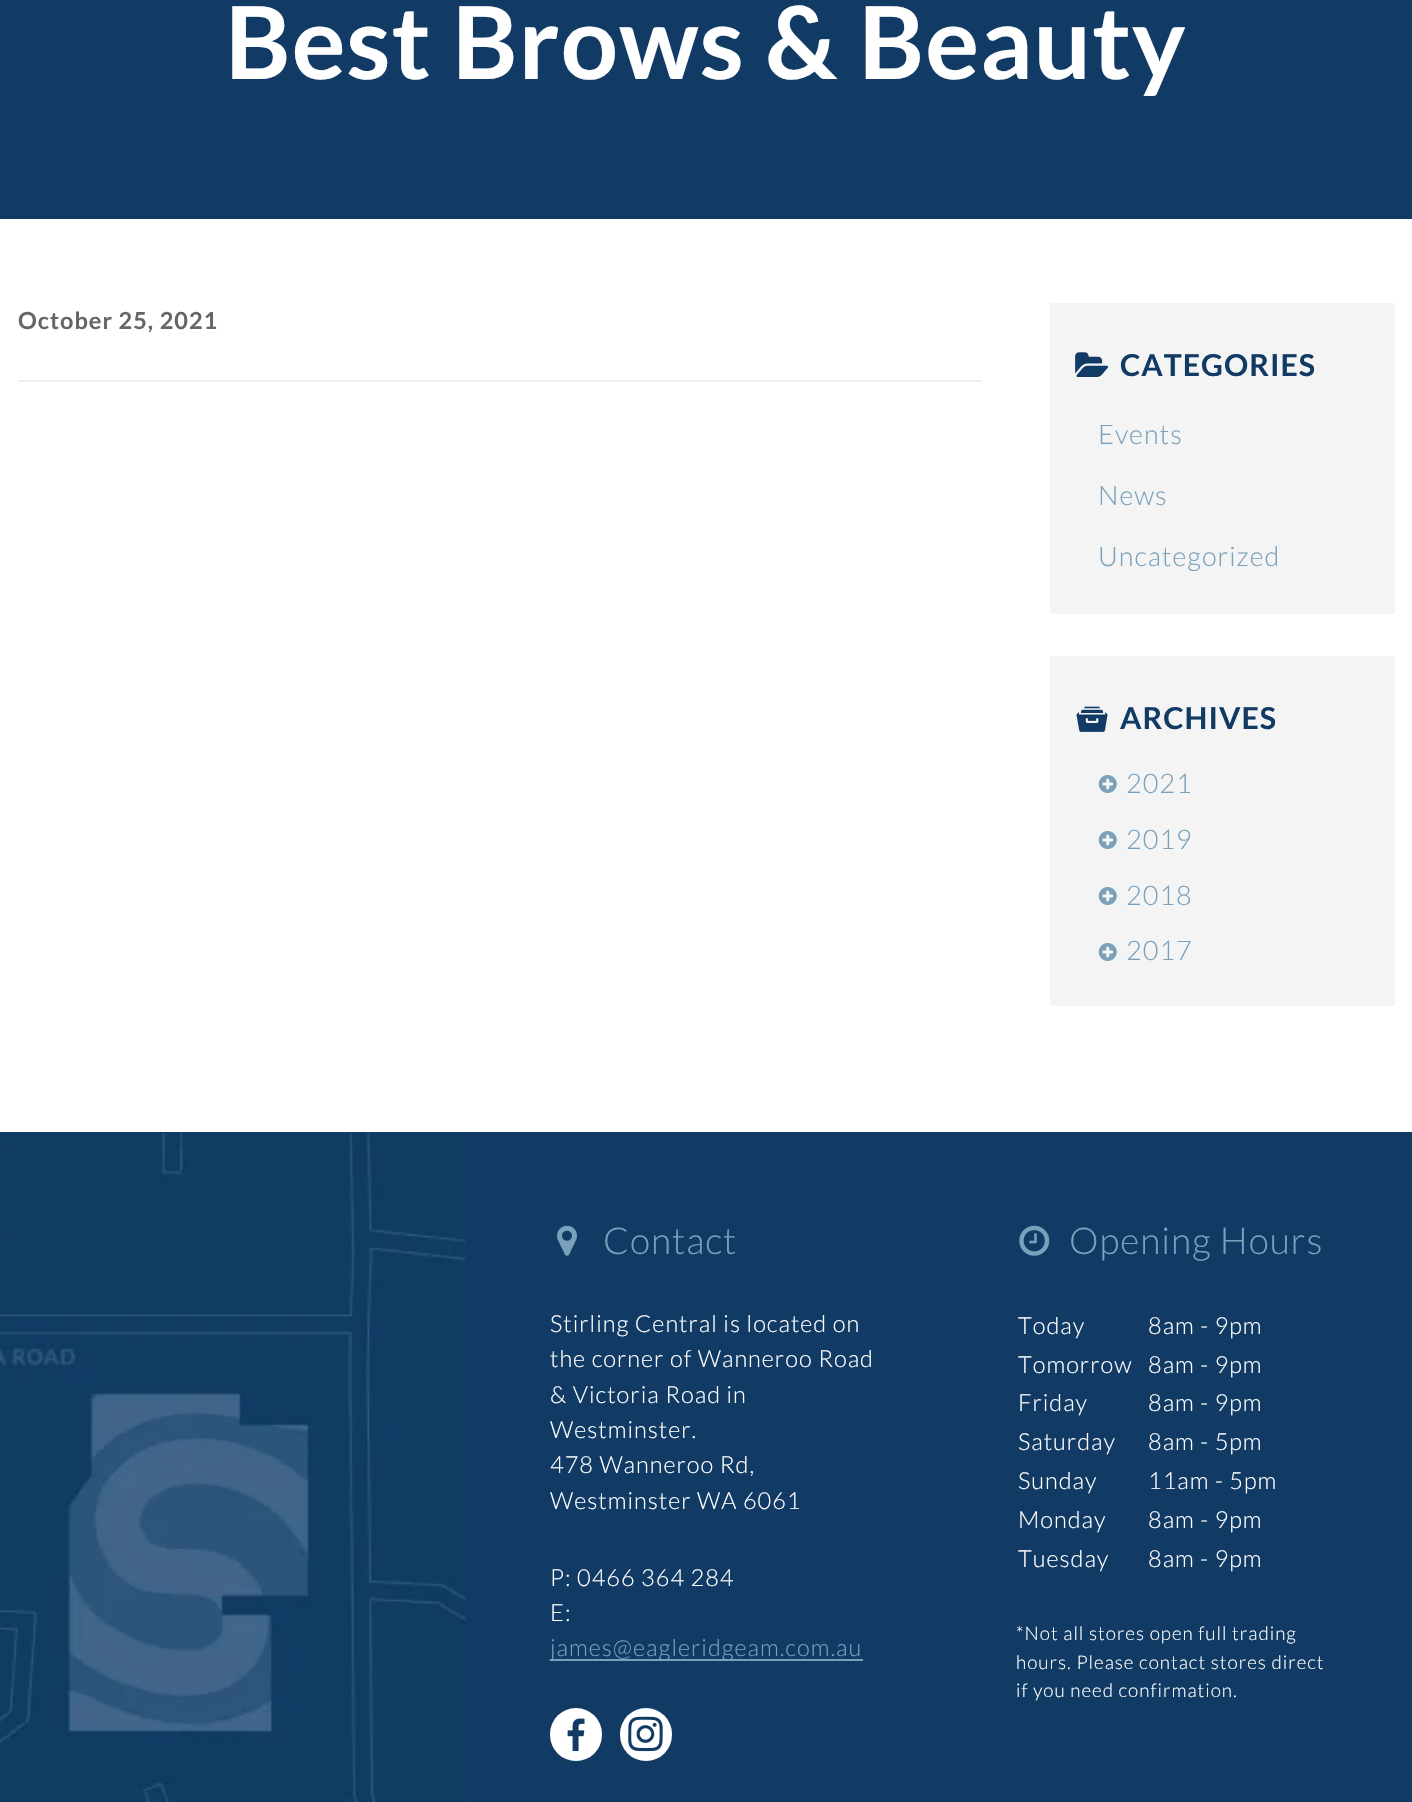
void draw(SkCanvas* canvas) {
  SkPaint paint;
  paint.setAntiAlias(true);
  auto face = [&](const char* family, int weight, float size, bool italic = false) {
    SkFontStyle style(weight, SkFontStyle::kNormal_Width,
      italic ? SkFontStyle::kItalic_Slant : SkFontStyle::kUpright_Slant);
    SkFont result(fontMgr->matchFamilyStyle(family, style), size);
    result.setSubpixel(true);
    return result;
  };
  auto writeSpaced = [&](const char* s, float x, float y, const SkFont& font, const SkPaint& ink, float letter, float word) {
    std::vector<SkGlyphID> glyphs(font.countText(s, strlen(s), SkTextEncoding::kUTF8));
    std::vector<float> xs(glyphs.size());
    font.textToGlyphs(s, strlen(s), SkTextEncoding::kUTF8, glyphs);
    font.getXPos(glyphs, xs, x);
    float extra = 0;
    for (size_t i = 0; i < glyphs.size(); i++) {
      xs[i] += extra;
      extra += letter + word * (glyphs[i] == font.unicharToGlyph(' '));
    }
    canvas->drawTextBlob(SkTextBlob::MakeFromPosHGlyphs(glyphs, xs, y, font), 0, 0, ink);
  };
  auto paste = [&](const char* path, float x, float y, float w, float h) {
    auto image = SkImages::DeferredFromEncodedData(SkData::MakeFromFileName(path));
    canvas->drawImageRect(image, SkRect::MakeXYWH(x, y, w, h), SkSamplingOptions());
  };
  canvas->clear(0xffffffff);
  {
    const struct { float x, y, w, h; SkColor color; } items[] = {
      {0, 0, 1412, 219, 0xff113b64},
      {18, 380, 964, 2, 0xffefefef},
      {1050, 303, 345, 311, 0xfff4f4f4},
    };
    for (auto [x, y, w, h, color] : items) {
      paint.setColor(color);
      canvas->drawRect(SkRect::MakeXYWH(x, y, w, h), paint);
    }
  }
  paste("img/1.png", 1075, 352, 34, 25);
  canvas->drawRect(SkRect::MakeXYWH(1050, 656, 345, 350), paint);
  paste("img/2.png", 1076, 706, 32, 26);
  paste("img/3.png", 1098, 775, 19, 18);
  paste("img/3.png", 1098, 831, 19, 18);
  paste("img/3.png", 1098, 887, 19, 18);
  paste("img/3.png", 1098, 943, 19, 18);
  paint.setColor(0xff113b64);
  canvas->drawRect(SkRect::MakeXYWH(0, 1132, 1412, 670), paint);
  paste("img/4.png", 0, 1133, 466, 669);
  paste("img/5.png", 557, 1225, 20, 31);
  paint.setColor(0xff79a1bc);
  canvas->drawRect(SkRect::MakeXYWH(550, 1659, 313, 2), paint);
  paint.setColor(0xffffffff);
  canvas->drawRoundRect(SkRect::MakeXYWH(550, 1708, 52, 53), 26, 26, paint);
  paste("img/6.png", 567, 1718, 18, 33);
  canvas->drawRoundRect(SkRect::MakeXYWH(620, 1708, 52, 53), 26, 26, paint);
  paste("img/7.png", 628, 1716, 35, 36);
  paste("img/8.png", 1019, 1225, 31, 31);
  auto f0 = face("Lato", 700, 100.75f);
  writeSpaced("Best Brows & Beauty", 225, 79, f0, paint, 1, 0);
  auto f1 = face("Lato", 700, 23.5f);
  paint.setColor(0xff666666);
  writeSpaced("October 25, 2021", 18, 329, f1, paint, 1, 0);
  auto f2 = face("Lato", 700, 30.25f);
  paint.setColor(0xff113b64);
  writeSpaced("CATEGORIES", 1120, 376, f2, paint, 1, 0);
  auto f3 = face("Lato", 300, 27);
  paint.setColor(0xff79a1bc);
  {
    const struct { const char* s; float x, y; } items[] = {
      {"Events", 1098, 444},
      {"News", 1098, 505},
      {"Uncategorized", 1098, 566},
    };
    for (auto [s, x, y] : items) {
      writeSpaced(s, x, y, f3, paint, 1, 0);
    }
  }
  paint.setColor(0xff113b64);
  writeSpaced("ARCHIVES", 1120, 729, f2, paint, 1, 0);
  paint.setColor(0xff79a1bc);
  {
    const struct { const char* s; float x, y; } items[] = {
      {"2021", 1126, 793},
      {"2019", 1126, 849},
      {"2018", 1126, 905},
      {"2017", 1126, 960},
    };
    for (auto [s, x, y] : items) {
      writeSpaced(s, x, y, f3, paint, 1, 0);
    }
  }
  auto f4 = face("Lato", 300, 37);
  writeSpaced("Contact", 603, 1254, f4, paint, 1, 0);
  auto f5 = face("Lato", 300, 23.5f);
  paint.setColor(0xffffffff);
  {
    const struct { const char* s; float x, y; } items[] = {
      {"Stirling Central is located on", 550, 1332},
      {"the corner of Wanneroo Road", 550, 1367},
      {"& Victoria Road in", 550, 1403},
      {"Westminster.", 550, 1438},
      {"478 Wanneroo Rd,", 550, 1473},
      {"Westminster WA 6061", 550, 1509},
      {"P: 0466 364 284", 550, 1586},
      {"E:", 550, 1621},
    };
    for (auto [s, x, y] : items) {
      writeSpaced(s, x, y, f5, paint, 1, 0);
    }
  }
  paint.setColor(0xff79a1bc);
  writeSpaced("james@eagleridgeam.com.au", 550, 1656, f5, paint, 1, 0);
  writeSpaced("Opening Hours", 1069, 1254, f4, paint, 1, 0);
  paint.setColor(0xffffffff);
  {
    const struct { const char* s; float x, y; } items[] = {
      {"Today", 1018, 1334},
      {"8am - 9pm", 1148, 1334},
      {"Tomorrow", 1018, 1373},
      {"8am - 9pm", 1148, 1373},
      {"Friday", 1018, 1411},
      {"8am - 9pm", 1148, 1411},
      {"Saturday", 1018, 1450},
      {"8am - 5pm", 1148, 1450},
      {"Sunday", 1018, 1489},
      {"11am - 5pm", 1148, 1489},
      {"Monday", 1018, 1528},
      {"8am - 9pm", 1148, 1528},
      {"Tuesday", 1018, 1567},
      {"8am - 9pm", 1148, 1567},
    };
    for (auto [s, x, y] : items) {
      writeSpaced(s, x, y, f5, paint, 1, 0);
    }
  }
  auto f6 = face("Lato", 300, 18.8f);
  {
    const struct { const char* s; float x, y; } items[] = {
      {"*Not all stores open full trading", 1016, 1640},
      {"hours. Please contact stores direct", 1016, 1669},
      {"if you need confirmation.", 1016, 1697},
    };
    for (auto [s, x, y] : items) {
      writeSpaced(s, x, y, f6, paint, 1, 0);
    }
  }
}
